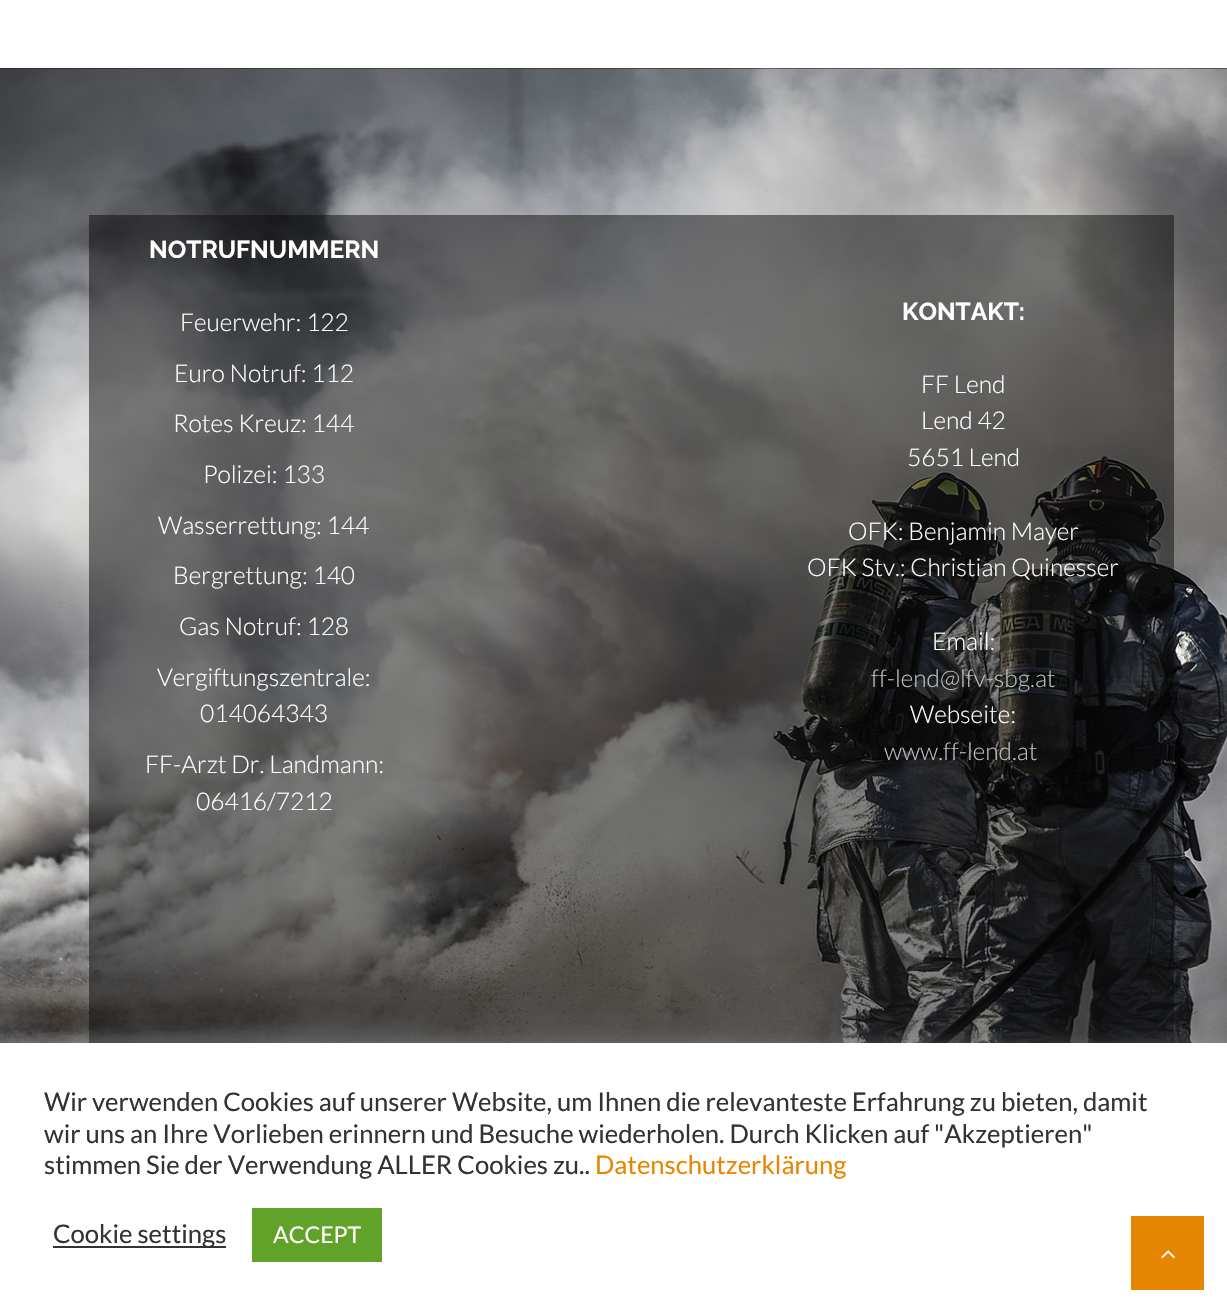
void draw(SkCanvas* canvas) {
  SkPaint paint;
  paint.setAntiAlias(true);
  auto face = [&](const char* family, int weight, float size, bool italic = false) {
    SkFontStyle style(weight, SkFontStyle::kNormal_Width,
      italic ? SkFontStyle::kItalic_Slant : SkFontStyle::kUpright_Slant);
    SkFont result(fontMgr->matchFamilyStyle(family, style), size);
    result.setSubpixel(true);
    return result;
  };
  auto paste = [&](const char* path, float x, float y, float w, float h) {
    auto image = SkImages::DeferredFromEncodedData(SkData::MakeFromFileName(path));
    canvas->drawImageRect(image, SkRect::MakeXYWH(x, y, w, h), SkSamplingOptions());
  };
  canvas->clear(0xffffffff);
  paint.setColor(0xff261c18);
  canvas->drawRect(SkRect::MakeXYWH(0, 68, 1227, 1), paint);
  paste("img/1.png", 0, 68, 1227, 975);
  paint.setColor(0x800a0a0a);
  canvas->drawRect(SkRect::MakeXYWH(89, 215, 1085, 828), paint);
  paint.setColor(0x4dacabab);
  paint.setMaskFilter(SkMaskFilter::MakeBlur(kNormal_SkBlurStyle, 9));
  canvas->drawRect(SkRect::MakeXYWH(0, 1041, 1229, 272), paint);
  paint.setMaskFilter(nullptr);
  {
    const struct { float x, y, w, h; SkColor color; } items[] = {
      {0, 1043, 1227, 271, 0xffffffff},
      {53, 1246, 173, 2, 0xff333333},
      {252, 1208, 130, 54, 0xff61a229},
      {1131, 1216, 73, 74, 0xffe78600},
    };
    for (auto [x, y, w, h, color] : items) {
      paint.setColor(color);
      canvas->drawRect(SkRect::MakeXYWH(x, y, w, h), paint);
    }
  }
  paste("img/2.png", 1161, 1250, 14, 9);
  auto f0 = face("Raleway", 700, 24.5f);
  paint.setColor(0xffffffff);
  canvas->drawString("NOTRUFNUMMERN", 149, 258, f0, paint);
  auto f1 = face("Lato", 300, 24.5f);
  {
    const struct { const char* s; float x, y; } items[] = {
      {"Feuerwehr: 122", 180, 331},
      {"Euro Notruf: 112", 174, 382},
      {"Rotes Kreuz: 144", 173, 432},
      {"Polizei: 133", 203, 483},
      {"Wasserrettung: 144", 158, 534},
      {"Bergrettung: 140", 173, 584},
      {"Gas Notruf: 128", 179, 635},
      {"Vergiftungszentrale:", 157, 686},
      {"014064343", 200, 722},
      {"FF-Arzt Dr. Landmann:", 145, 773},
      {"06416/7212", 196, 810},
    };
    for (auto [s, x, y] : items) {
      canvas->drawString(s, x, y, f1, paint);
    }
  }
  canvas->drawString("KONTAKT:", 902, 320, f0, paint);
  {
    const struct { const char* s; float x, y; } items[] = {
      {"FF Lend", 921, 393},
      {"Lend 42", 921, 429},
      {"5651 Lend", 907, 466},
      {"OFK: Benjamin Mayer", 848, 540},
      {"OFK Stv.: Christian Quinesser", 807, 576},
      {"Email:", 932, 650},
    };
    for (auto [s, x, y] : items) {
      canvas->drawString(s, x, y, f1, paint);
    }
  }
  paint.setColor(0xffbfbfbf);
  canvas->drawString("ff-lend@lfv-sbg.at", 871, 687, f1, paint);
  paint.setColor(0xffffffff);
  canvas->drawString("Webseite:", 910, 723, f1, paint);
  paint.setColor(0xffbfbfbf);
  canvas->drawString("www.ff-lend.at", 884, 760, f1, paint);
  auto f2 = face("Lato", 400, 25.65f);
  paint.setColor(0xff333333);
  {
    const struct { const char* s; float x, y; } items[] = {
      {"Wir verwenden Cookies auf unserer Website, um Ihnen die relevanteste Erfahrung zu bieten, damit", 44, 1111},
      {"wir uns an Ihre Vorlieben erinnern und Besuche wiederholen. Durch Klicken auf \"Akzeptieren\"", 44, 1143},
      {"stimmen Sie der Verwendung ALLER Cookies zu..", 44, 1174},
    };
    for (auto [s, x, y] : items) {
      canvas->drawString(s, x, y, f2, paint);
    }
  }
  paint.setColor(0xffe78600);
  canvas->drawString("Datenschutzerklärung", 595, 1174, f2, paint);
  paint.setColor(0xff333333);
  canvas->drawString("Cookie settings", 53, 1243, f2, paint);
  auto f3 = face("Lato", 400, 23);
  paint.setColor(0xffffffff);
  canvas->drawString("ACCEPT", 273, 1243, f3, paint);
}
